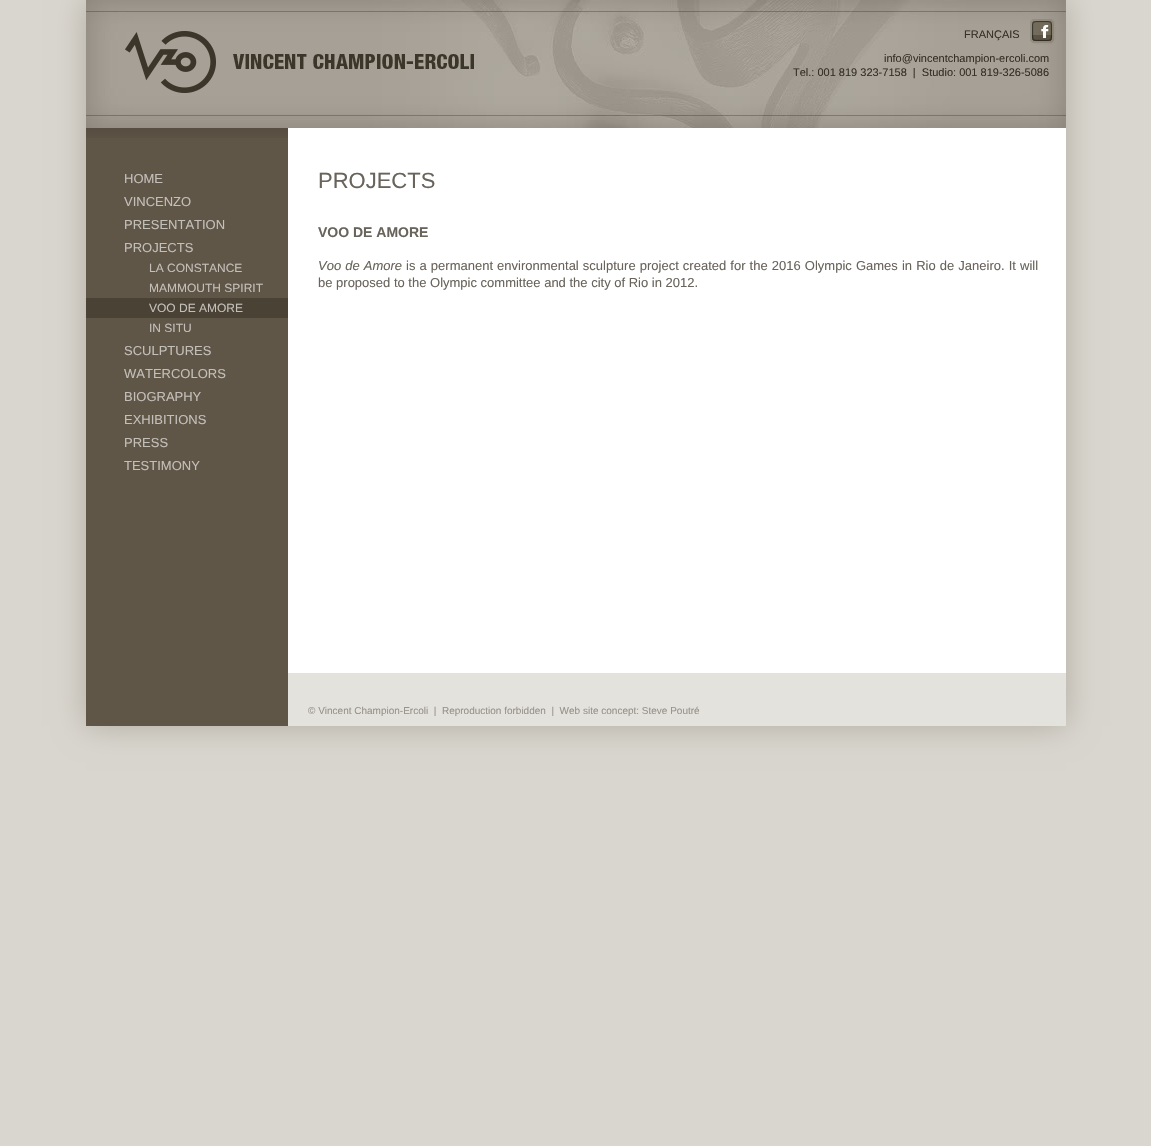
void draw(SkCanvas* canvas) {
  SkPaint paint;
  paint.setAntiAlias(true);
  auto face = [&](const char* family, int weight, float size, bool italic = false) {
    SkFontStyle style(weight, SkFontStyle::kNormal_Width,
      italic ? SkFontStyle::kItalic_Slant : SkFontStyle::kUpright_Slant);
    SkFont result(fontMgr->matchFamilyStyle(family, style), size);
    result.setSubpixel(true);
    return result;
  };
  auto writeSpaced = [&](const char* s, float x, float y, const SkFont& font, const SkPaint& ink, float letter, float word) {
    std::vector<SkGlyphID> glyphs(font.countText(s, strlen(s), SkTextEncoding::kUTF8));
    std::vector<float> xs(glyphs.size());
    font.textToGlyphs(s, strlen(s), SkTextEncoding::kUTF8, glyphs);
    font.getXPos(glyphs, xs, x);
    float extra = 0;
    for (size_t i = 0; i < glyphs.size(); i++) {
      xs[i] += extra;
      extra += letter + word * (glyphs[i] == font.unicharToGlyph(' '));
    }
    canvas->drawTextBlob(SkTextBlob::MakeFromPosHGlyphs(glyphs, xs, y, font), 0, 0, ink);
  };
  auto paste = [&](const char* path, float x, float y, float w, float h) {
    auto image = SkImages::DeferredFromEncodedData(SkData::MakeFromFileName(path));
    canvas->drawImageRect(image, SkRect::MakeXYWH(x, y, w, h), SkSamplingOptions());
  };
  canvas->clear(0xffd9d6cf);
  paint.setColor(0xffb1aca2);
  paint.setMaskFilter(SkMaskFilter::MakeBlur(kNormal_SkBlurStyle, 15));
  canvas->drawRect(SkRect::MakeXYWH(86, 0, 980, 726), paint);
  paint.setMaskFilter(nullptr);
  paste("img/1.png", 86, 128, 980, 545);
  paste("img/2.png", 86, 0, 980, 128);
  paste("img/3.png", 125, 31, 349, 62);
  paste("img/4.png", 1030, 19, 26, 26);
  paste("img/5.png", 86, 128, 202, 10);
  {
    const struct { float x, y, w, h; SkColor color; } items[] = {
      {86, 298, 202, 20, 0xff4b4236},
      {288, 673, 778, 53, 0xffe4e2dd},
      {86, 673, 202, 53, 0xff605648},
    };
    for (auto [x, y, w, h, color] : items) {
      paint.setColor(color);
      canvas->drawRect(SkRect::MakeXYWH(x, y, w, h), paint);
    }
  }
  auto f0 = face("Liberation Sans", 400, 11);
  paint.setColor(0xff362f25);
  {
    const struct { const char* s; float x, y; } items[] = {
      {"FRANÇAIS", 964, 38},
      {"info@vincentchampion-ercoli.com", 884, 62},
      {"Tel.: 001 819 323-7158  |  Studio: 001 819-326-5086", 793, 76},
    };
    for (auto [s, x, y] : items) {
      canvas->drawString(s, x, y, f0, paint);
    }
  }
  auto f1 = face("Liberation Sans", 400, 13);
  paint.setColor(0xffc3bfb9);
  {
    const struct { const char* s; float x, y; } items[] = {
      {"HOME", 124, 183},
      {"VINCENZO", 124, 206},
      {"PRESENTATION", 124, 229},
      {"PROJECTS", 124, 252},
    };
    for (auto [s, x, y] : items) {
      canvas->drawString(s, x, y, f1, paint);
    }
  }
  auto f2 = face("Liberation Sans", 400, 12);
  {
    const struct { const char* s; float x, y; } items[] = {
      {"LA CONSTANCE", 149, 272},
      {"MAMMOUTH SPIRIT", 149, 292},
      {"VOO DE AMORE", 149, 312},
      {"IN SITU", 149, 332},
    };
    for (auto [s, x, y] : items) {
      canvas->drawString(s, x, y, f2, paint);
    }
  }
  {
    const struct { const char* s; float x, y; } items[] = {
      {"SCULPTURES", 124, 355},
      {"WATERCOLORS", 124, 378},
      {"BIOGRAPHY", 124, 401},
      {"EXHIBITIONS", 124, 424},
      {"PRESS", 124, 447},
      {"TESTIMONY", 124, 470},
    };
    for (auto [s, x, y] : items) {
      canvas->drawString(s, x, y, f1, paint);
    }
  }
  auto f3 = face("Liberation Sans", 400, 22);
  paint.setColor(0xff68635b);
  canvas->drawString("PROJECTS", 318, 188, f3, paint);
  auto f4 = face("Liberation Sans", 700, 14);
  canvas->drawString("VOO DE AMORE", 318, 237, f4, paint);
  auto f5 = face("Liberation Sans", 400, 13, true);
  writeSpaced("Voo de Amore", 318, 270, f5, paint, 0, 0.5f);
  writeSpaced("is a permanent environmental sculpture project created for the 2016 Olympic Games in Rio de Janeiro. It will", 406, 270, f1, paint, 0, 0.5f);
  canvas->drawString("be proposed to the Olympic committee and the city of Rio in 2012.", 318, 287, f1, paint);
  auto f6 = face("Liberation Sans", 400, 10);
  paint.setColor(0xff97928a);
  canvas->drawString("© Vincent Champion-Ercoli  |  Reproduction forbidden  |  Web site concept: Steve Poutré", 308, 714, f6, paint);
}
